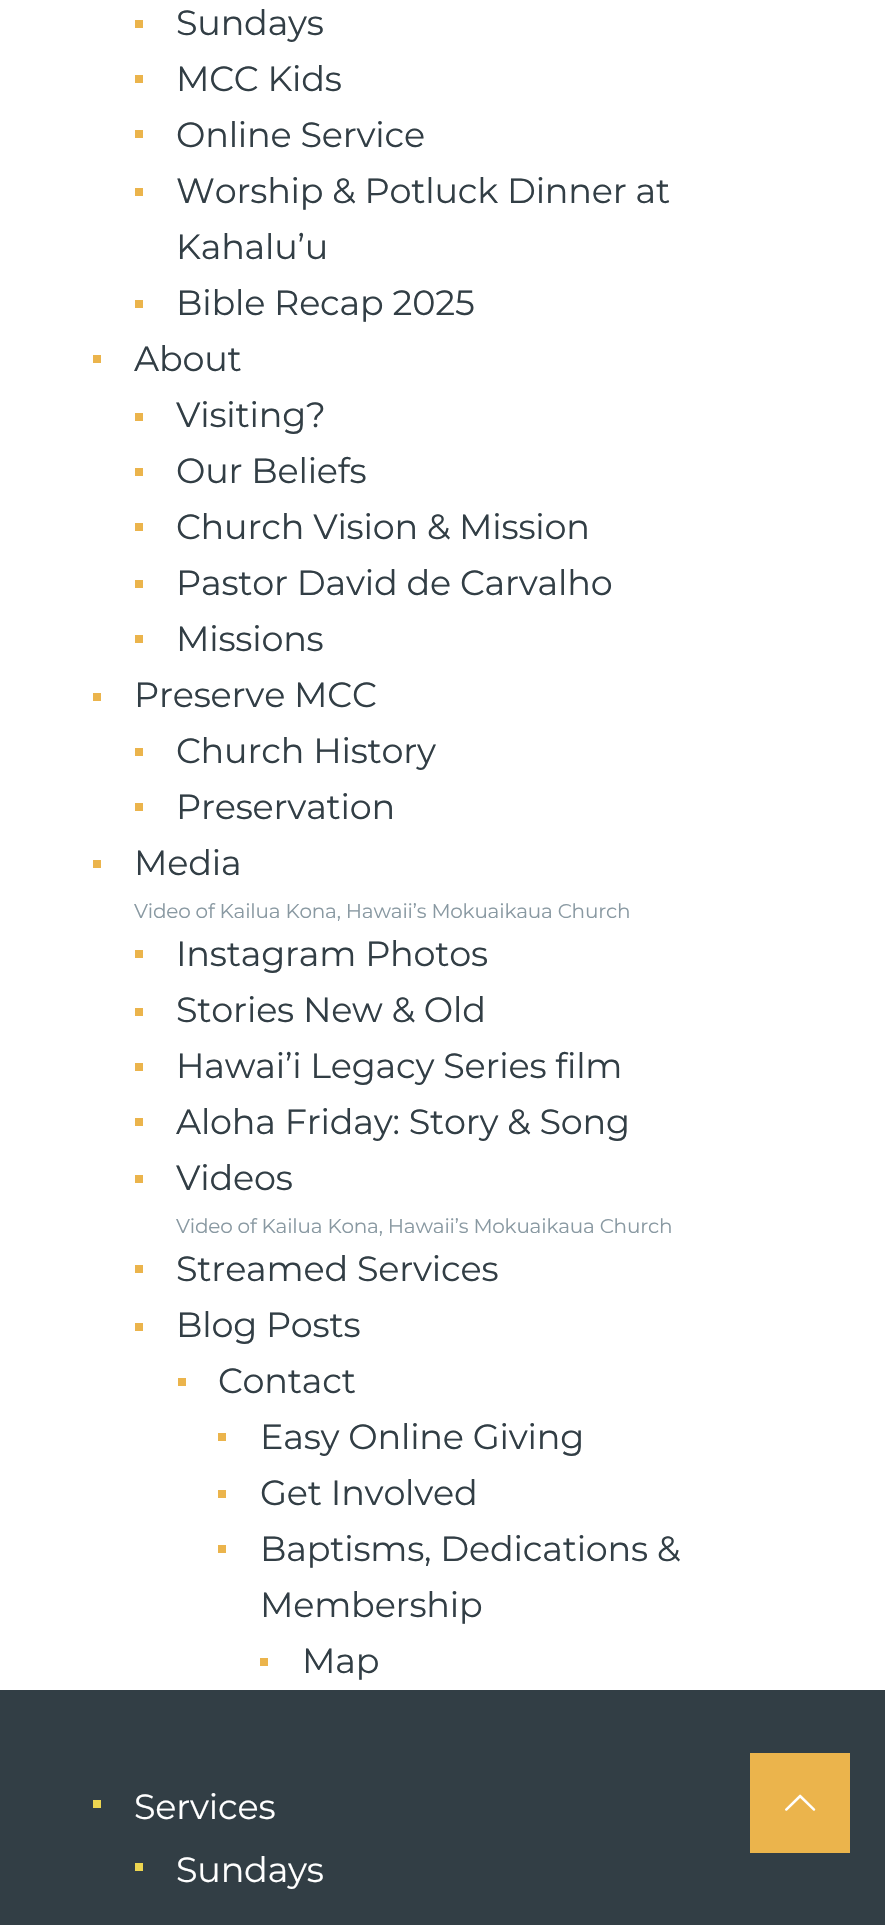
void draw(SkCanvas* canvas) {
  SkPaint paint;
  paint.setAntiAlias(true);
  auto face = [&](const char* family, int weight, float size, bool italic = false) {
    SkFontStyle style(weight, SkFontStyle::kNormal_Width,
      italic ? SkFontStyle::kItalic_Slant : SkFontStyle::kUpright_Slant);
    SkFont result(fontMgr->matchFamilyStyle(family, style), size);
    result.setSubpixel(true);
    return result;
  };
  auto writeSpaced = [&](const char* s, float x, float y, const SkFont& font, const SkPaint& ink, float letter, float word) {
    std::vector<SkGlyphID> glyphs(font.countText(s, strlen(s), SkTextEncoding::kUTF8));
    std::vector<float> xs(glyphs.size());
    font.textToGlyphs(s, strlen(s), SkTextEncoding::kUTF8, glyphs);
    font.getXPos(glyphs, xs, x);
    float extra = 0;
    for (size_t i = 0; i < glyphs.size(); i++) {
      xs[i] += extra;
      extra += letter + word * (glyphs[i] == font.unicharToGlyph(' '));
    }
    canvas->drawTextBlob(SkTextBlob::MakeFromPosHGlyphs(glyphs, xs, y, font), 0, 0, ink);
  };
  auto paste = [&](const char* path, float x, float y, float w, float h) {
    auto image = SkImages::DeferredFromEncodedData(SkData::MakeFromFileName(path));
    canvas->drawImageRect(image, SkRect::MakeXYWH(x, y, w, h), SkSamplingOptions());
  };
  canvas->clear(0xff323e45);
  {
    const struct { float x, y, w, h; SkColor color; } items[] = {
      {0, 0, 885, 1690, 0xffffffff},
      {135, 20, 8, 8, 0xffebb44c},
      {135, 75, 8, 8, 0xffebb44c},
      {135, 130, 8, 8, 0xffebb44c},
      {135, 188, 8, 8, 0xffebb44c},
      {135, 300, 8, 8, 0xffebb44c},
      {93, 355, 8, 8, 0xffebb44c},
      {135, 413, 8, 8, 0xffebb44c},
      {135, 468, 8, 8, 0xffebb44c},
      {135, 523, 8, 8, 0xffebb44c},
      {135, 580, 8, 8, 0xffebb44c},
      {135, 635, 8, 8, 0xffebb44c},
      {93, 693, 8, 8, 0xffebb44c},
      {135, 748, 8, 8, 0xffebb44c},
      {135, 803, 8, 8, 0xffebb44c},
      {93, 860, 8, 8, 0xffebb44c},
      {135, 950, 8, 8, 0xffebb44c},
      {135, 1008, 8, 8, 0xffebb44c},
      {135, 1063, 8, 8, 0xffebb44c},
      {135, 1118, 8, 8, 0xffebb44c},
      {135, 1175, 8, 8, 0xffebb44c},
      {135, 1265, 8, 8, 0xffebb44c},
      {135, 1323, 8, 8, 0xffebb44c},
      {178, 1378, 8, 8, 0xffebb44c},
      {218, 1433, 8, 8, 0xffebb44c},
      {218, 1490, 8, 8, 0xffebb44c},
      {218, 1545, 8, 8, 0xffebb44c},
      {260, 1658, 8, 8, 0xffebb44c},
      {93, 1800, 8, 8, 0xffedd550},
      {135, 1863, 8, 8, 0xffedd550},
      {750, 1753, 100, 100, 0xffebb44c},
    };
    for (auto [x, y, w, h, color] : items) {
      paint.setColor(color);
      canvas->drawRect(SkRect::MakeXYWH(x, y, w, h), paint);
    }
  }
  paste("img/1.png", 785, 1794, 31, 17);
  auto f0 = face("Montserrat", 400, 35);
  paint.setColor(0xff323e45);
  {
    const struct { const char* s; float x, y; } items[] = {
      {"Sundays", 176, 35},
      {"MCC Kids", 176, 91},
      {"Online Service", 176, 147},
      {"Worship & Potluck Dinner at", 176, 203},
      {"Kahalu’u", 176, 259},
      {"Bible Recap 2025", 176, 315},
      {"About", 134, 371},
      {"Visiting?", 176, 427},
      {"Our Beliefs", 176, 483},
      {"Church Vision & Mission", 176, 539},
      {"Pastor David de Carvalho", 176, 595},
      {"Missions", 176, 651},
      {"Preserve MCC", 134, 707},
      {"Church History", 176, 763},
      {"Preservation", 176, 819},
      {"Media", 134, 875},
    };
    for (auto [s, x, y] : items) {
      writeSpaced(s, x, y, f0, paint, -0.2f, 0);
    }
  }
  auto f1 = face("Montserrat", 400, 20);
  paint.setColor(0xff8999a2);
  writeSpaced("Video of Kailua Kona, Hawaii’s Mokuaikaua Church", 134, 918, f1, paint, -0.2f, 0);
  paint.setColor(0xff323e45);
  {
    const struct { const char* s; float x, y; } items[] = {
      {"Instagram Photos", 176, 966},
      {"Stories New & Old", 176, 1022},
      {"Hawai’i Legacy Series film", 176, 1078},
      {"Aloha Friday: Story & Song", 176, 1134},
      {"Videos", 176, 1190},
    };
    for (auto [s, x, y] : items) {
      writeSpaced(s, x, y, f0, paint, -0.2f, 0);
    }
  }
  paint.setColor(0xff8999a2);
  writeSpaced("Video of Kailua Kona, Hawaii’s Mokuaikaua Church", 176, 1233, f1, paint, -0.2f, 0);
  paint.setColor(0xff323e45);
  {
    const struct { const char* s; float x, y; } items[] = {
      {"Streamed Services", 176, 1281},
      {"Blog Posts", 176, 1337},
      {"Contact", 218, 1393},
      {"Easy Online Giving", 260, 1449},
      {"Get Involved", 260, 1505},
      {"Baptisms, Dedications &", 260, 1561},
      {"Membership", 260, 1617},
      {"Map", 302, 1673},
    };
    for (auto [s, x, y] : items) {
      writeSpaced(s, x, y, f0, paint, -0.2f, 0);
    }
  }
  paint.setColor(0xffffffff);
  writeSpaced("Services", 134, 1819, f0, paint, -0.2f, 0);
  writeSpaced("Sundays", 176, 1882, f0, paint, -0.2f, 0);
}
